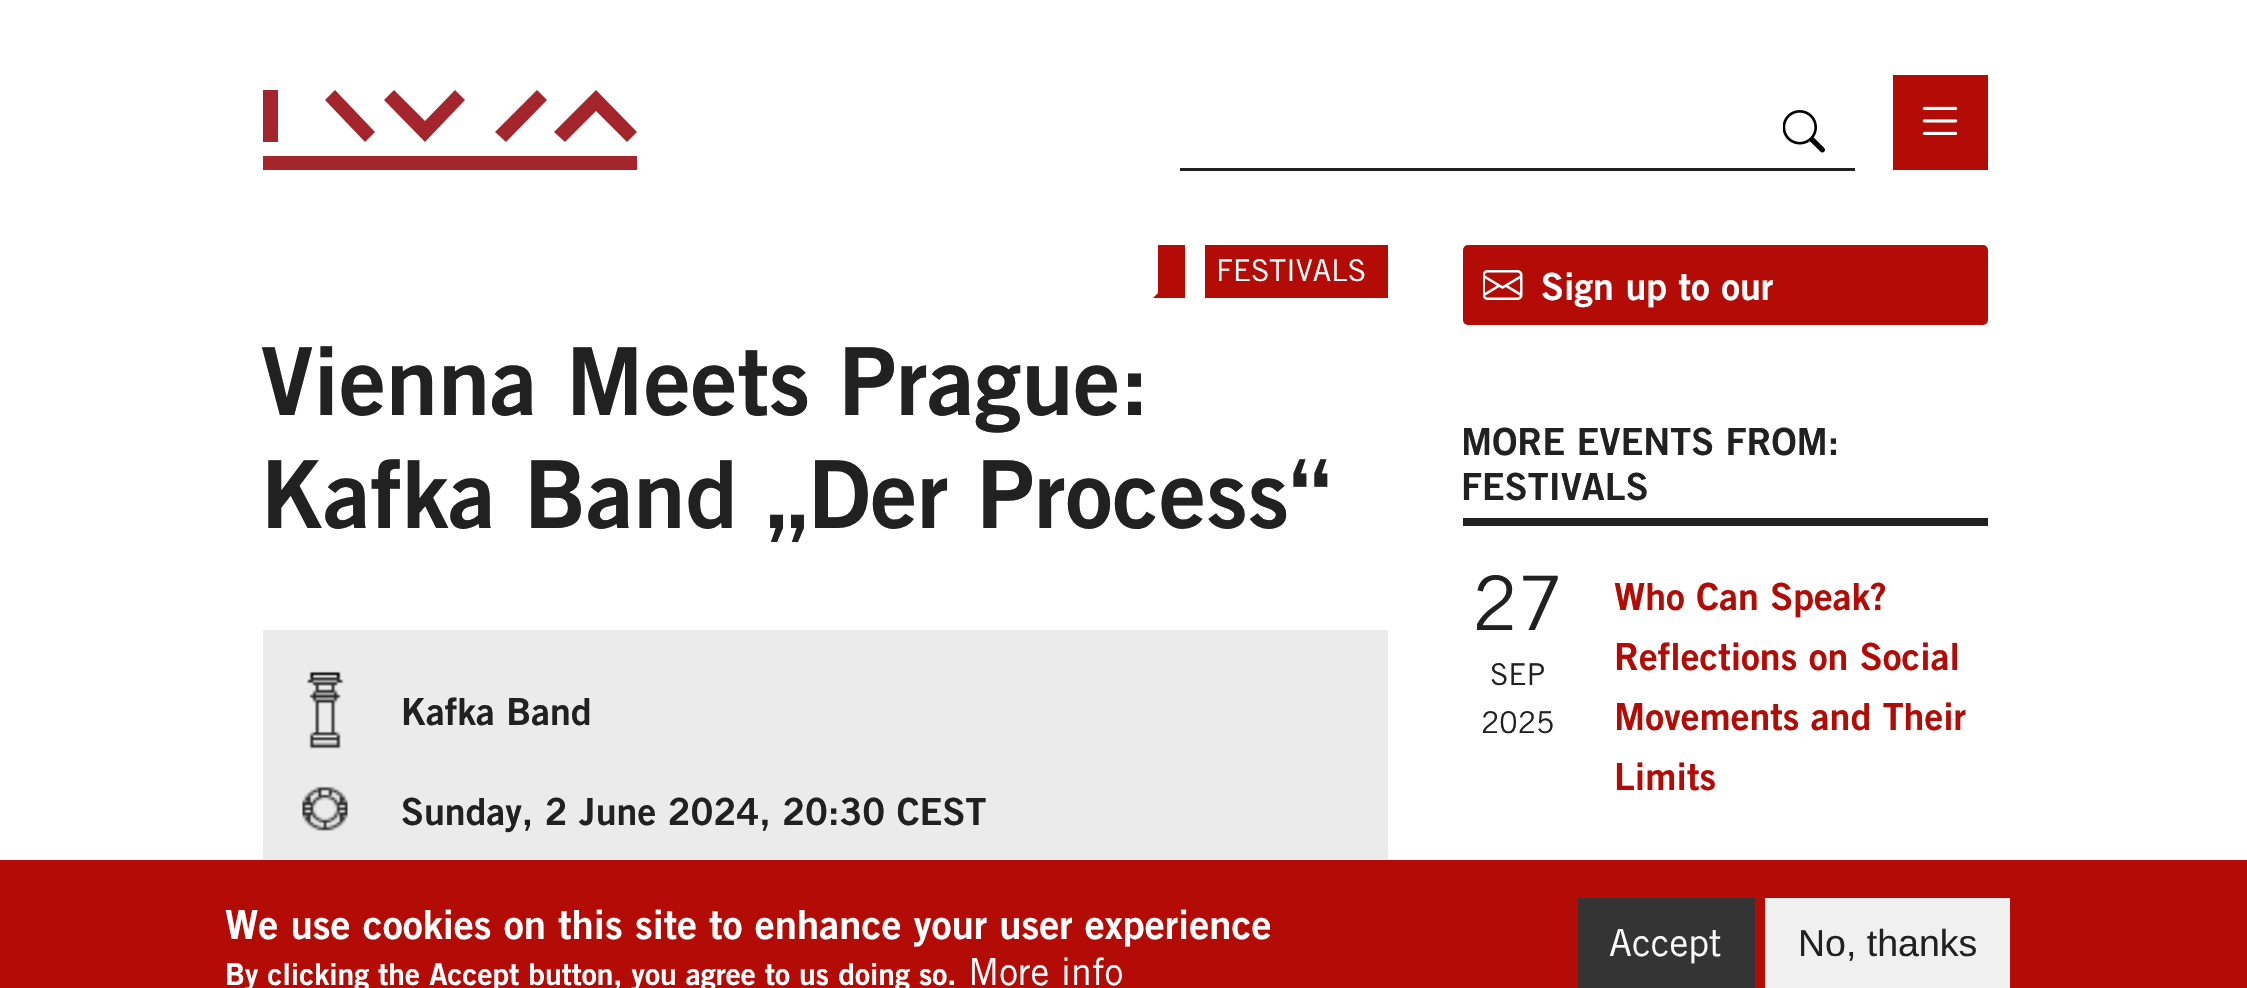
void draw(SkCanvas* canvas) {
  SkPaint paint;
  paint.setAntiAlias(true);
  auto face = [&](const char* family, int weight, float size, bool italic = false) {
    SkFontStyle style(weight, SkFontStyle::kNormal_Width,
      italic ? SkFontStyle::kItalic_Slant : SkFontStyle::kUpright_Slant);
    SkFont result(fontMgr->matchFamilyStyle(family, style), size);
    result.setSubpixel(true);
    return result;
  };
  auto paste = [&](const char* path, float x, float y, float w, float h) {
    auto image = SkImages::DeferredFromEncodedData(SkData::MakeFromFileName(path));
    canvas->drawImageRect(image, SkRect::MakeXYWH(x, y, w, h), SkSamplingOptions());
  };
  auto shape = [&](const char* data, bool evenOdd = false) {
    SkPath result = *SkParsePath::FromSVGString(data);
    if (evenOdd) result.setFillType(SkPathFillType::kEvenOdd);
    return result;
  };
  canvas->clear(0xffffffff);
  paint.setColor(0xffa4262c);
  canvas->drawRect(SkRect::MakeXYWH(263, 90, 15, 52), paint);
  canvas->drawPath(shape("M365 142L325 100L335 90L375 132Z"), paint);
  canvas->drawPath(shape("M425 142L384 100L394 90L425 121L455 90L465 100Z"), paint);
  canvas->drawPath(shape("M506 142L495 132L537 90L547 100Z"), paint);
  canvas->drawPath(shape("M627 142L596 111L565 142L554 132L596 90L637 132Z"), paint);
  canvas->drawRect(SkRect::MakeXYWH(263, 156, 374, 14), paint);
  paint.setColor(0xff212121);
  canvas->drawRect(SkRect::MakeXYWH(1180, 168, 675, 3), paint);
  paste("img/1.png", 1783, 110, 42, 43);
  paint.setColor(0xffb30c06);
  canvas->drawRect(SkRect::MakeXYWH(1893, 75, 95, 95), paint);
  paste("img/2.png", 1922, 106, 36, 29);
  canvas->drawRect(SkRect::MakeXYWH(1158, 245, 27, 53), paint);
  canvas->save();
  canvas->clipRect(SkRect::MakeXYWH(1153, 245, 32, 53));
  canvas->drawPath(shape("M1152.5 298.5L1160.5 290.5V298.5Z"), paint);
  canvas->restore();
  canvas->drawRect(SkRect::MakeXYWH(1205, 245, 183, 53), paint);
  paint.setColor(0xffebebeb);
  canvas->drawRect(SkRect::MakeXYWH(263, 630, 1125, 230), paint);
  paste("img/3.png", 307, 671, 37, 78);
  paste("img/4.png", 302, 786, 46, 45);
  paint.setColor(0xffb30c06);
  canvas->drawRoundRect(SkRect::MakeXYWH(1463, 245, 525, 80), 5, 5, paint);
  paste("img/5.png", 1483, 270, 40, 30);
  {
    const struct { float x, y, w, h; SkColor color; } items[] = {
      {1463, 518, 525, 8, 0xff212121},
      {0, 860, 2247, 128, 0xffb30c06},
      {1578, 898, 177, 90, 0xff343434},
      {1765, 898, 245, 90, 0xfff0f0f0},
    };
    for (auto [x, y, w, h, color] : items) {
      paint.setColor(color);
      canvas->drawRect(SkRect::MakeXYWH(x, y, w, h), paint);
    }
  }
  auto f0 = face("Trade Gothic", 400, 30);
  paint.setColor(0xffffffff);
  canvas->drawString("FESTIVALS", 1216, 281, f0, paint);
  auto f1 = face("Trade Gothic", 700, 93.75f);
  paint.setColor(0xff212121);
  canvas->drawString("Vienna Meets Prague:", 261, 415, f1, paint);
  canvas->drawString("Kafka Band „Der Process“", 261, 528, f1, paint);
  auto f2 = face("Trade Gothic", 700, 37.5f);
  canvas->drawString("Kafka Band", 401, 725, f2, paint);
  canvas->drawString("Sunday, 2 June 2024, 20:30 CEST", 401, 825, f2, paint);
  paint.setColor(0xffffffff);
  canvas->drawString("Sign up to our", 1541, 300, f2, paint);
  paint.setColor(0xff212121);
  canvas->drawString("MORE EVENTS FROM:", 1461, 455, f2, paint);
  canvas->drawString("FESTIVALS", 1461, 500, f2, paint);
  auto f3 = face("Trade Gothic", 400, 75);
  canvas->drawString("27", 1472, 630, f3, paint);
  canvas->drawString("SEP", 1490, 685, f0, paint);
  canvas->drawString("2025", 1481, 733, f0, paint);
  paint.setColor(0xffb30c06);
  {
    const struct { const char* s; float x, y; } items[] = {
      {"Who Can Speak?", 1614, 610},
      {"Reflections on Social", 1614, 670},
      {"Movements and Their", 1614, 730},
      {"Limits", 1614, 790},
    };
    for (auto [s, x, y] : items) {
      canvas->drawString(s, x, y, f2, paint);
    }
  }
  auto f4 = face("Trade Gothic", 700, 40);
  paint.setColor(0xffffffff);
  canvas->drawString("We use cookies on this site to enhance your user experience", 225, 939, f4, paint);
  auto f5 = face("Trade Gothic", 700, 30);
  canvas->drawString("By clicking the Accept button, you agree to us doing so.", 225, 985, f5, paint);
  auto f6 = face("Trade Gothic", 400, 37.5f);
  canvas->drawString("More info", 968, 985, f6, paint);
  canvas->drawString("Accept", 1609, 956, f6, paint);
  auto f7 = face("Liberation Sans", 400, 37.5f);
  paint.setColor(0xff212121);
  canvas->drawString("No, thanks", 1798, 956, f7, paint);
}
